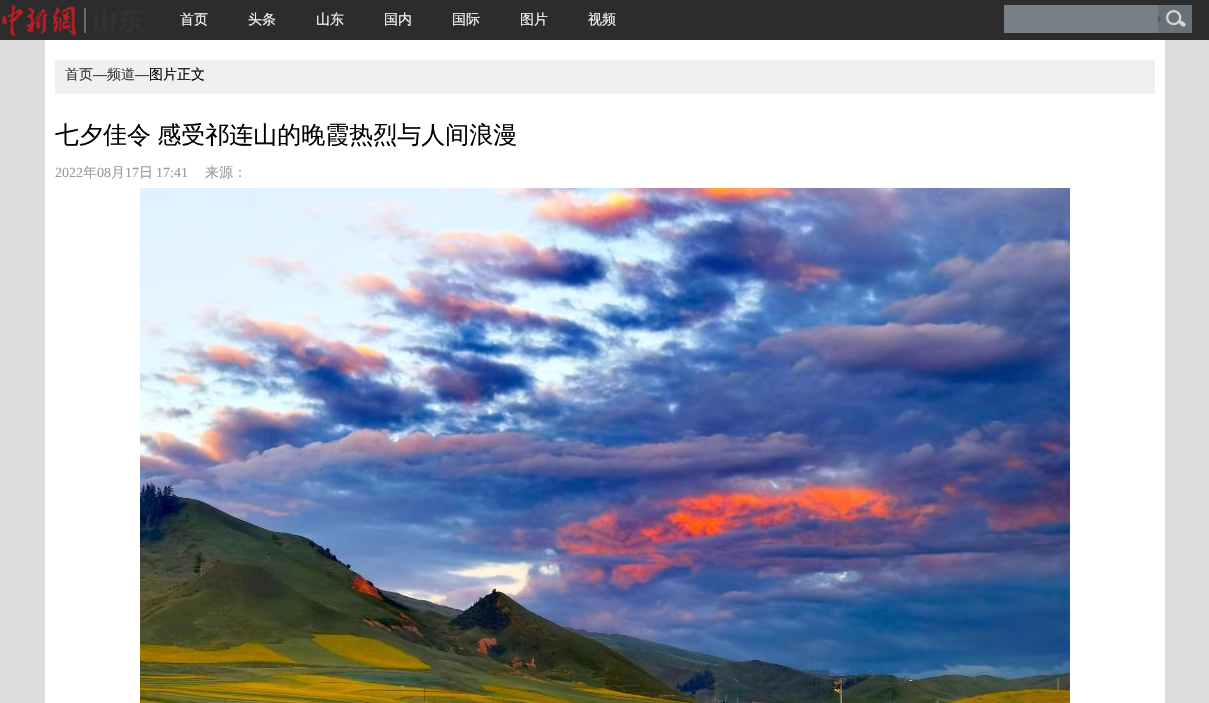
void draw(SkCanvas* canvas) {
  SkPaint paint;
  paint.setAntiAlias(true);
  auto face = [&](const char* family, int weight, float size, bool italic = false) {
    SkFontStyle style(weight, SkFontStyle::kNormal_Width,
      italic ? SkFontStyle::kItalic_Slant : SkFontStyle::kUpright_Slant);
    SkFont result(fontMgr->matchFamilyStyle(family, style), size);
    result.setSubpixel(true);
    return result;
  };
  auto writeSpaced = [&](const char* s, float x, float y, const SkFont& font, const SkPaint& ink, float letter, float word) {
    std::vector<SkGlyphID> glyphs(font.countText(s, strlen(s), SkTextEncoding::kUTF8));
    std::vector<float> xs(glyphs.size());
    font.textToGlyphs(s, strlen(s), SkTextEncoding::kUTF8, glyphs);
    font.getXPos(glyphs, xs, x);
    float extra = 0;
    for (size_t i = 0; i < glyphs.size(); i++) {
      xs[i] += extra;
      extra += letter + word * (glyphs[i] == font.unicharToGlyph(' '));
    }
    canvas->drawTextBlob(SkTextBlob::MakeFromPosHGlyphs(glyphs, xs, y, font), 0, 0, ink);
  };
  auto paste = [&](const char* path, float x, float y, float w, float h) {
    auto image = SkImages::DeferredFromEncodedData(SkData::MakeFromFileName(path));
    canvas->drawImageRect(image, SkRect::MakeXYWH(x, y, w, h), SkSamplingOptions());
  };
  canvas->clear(0xffdddddd);
  paint.setColor(0xff2c2c2c);
  canvas->drawRect(SkRect::MakeXYWH(0, 0, 1209, 40), paint);
  paste("img/1.png", 2, 5, 140, 31);
  paint.setColor(0xff777f89);
  canvas->drawRect(SkRect::MakeXYWH(1004, 5, 154, 28), paint);
  paste("img/2.png", 1158, 5, 34, 28);
  paint.setColor(0xffffffff);
  canvas->drawRect(SkRect::MakeXYWH(45, 40, 1120, 663), paint);
  paint.setColor(0xfff0f0f0);
  canvas->drawRect(SkRect::MakeXYWH(55, 60, 1100, 34), paint);
  paste("img/3.png", 140, 188, 930, 515);
  auto f0 = face("WenQuanYi Zen Hei", 500, 14);
  paint.setColor(0xfff8f8f8);
  {
    const struct { const char* s; float x, y; } items[] = {
      {"首页", 180, 24},
      {"头条", 248, 24},
      {"山东", 316, 24},
      {"国内", 384, 24},
      {"国际", 452, 24},
      {"图片", 520, 24},
      {"视频", 588, 24},
    };
    for (auto [s, x, y] : items) {
      canvas->drawString(s, x, y, f0, paint);
    }
  }
  paint.setColor(0xff3a3a3a);
  canvas->drawString("首页", 65, 79, f0, paint);
  auto f1 = face("Liberation Serif", 400, 14);
  paint.setColor(0xff000000);
  canvas->drawString("—", 93, 79, f1, paint);
  paint.setColor(0xff3a3a3a);
  canvas->drawString("频道", 107, 79, f0, paint);
  paint.setColor(0xff000000);
  canvas->drawString("—", 135, 79, f1, paint);
  canvas->drawString("图片正文", 149, 79, f0, paint);
  auto f2 = face("WenQuanYi Zen Hei", 500, 24);
  writeSpaced("七夕佳令 感受祁连山的晚霞热烈与人间浪漫", 55, 143, f2, paint, 0, -1);
  paint.setColor(0xff999999);
  canvas->drawString("2022", 55, 177, f1, paint);
  canvas->drawString("年", 83, 177, f0, paint);
  canvas->drawString("08", 97, 177, f1, paint);
  canvas->drawString("月", 111, 177, f0, paint);
  canvas->drawString("17", 125, 177, f1, paint);
  canvas->drawString("日", 139, 177, f0, paint);
  canvas->drawString("17:41", 156, 177, f1, paint);
  canvas->drawString("来源：", 205, 177, f0, paint);
}
